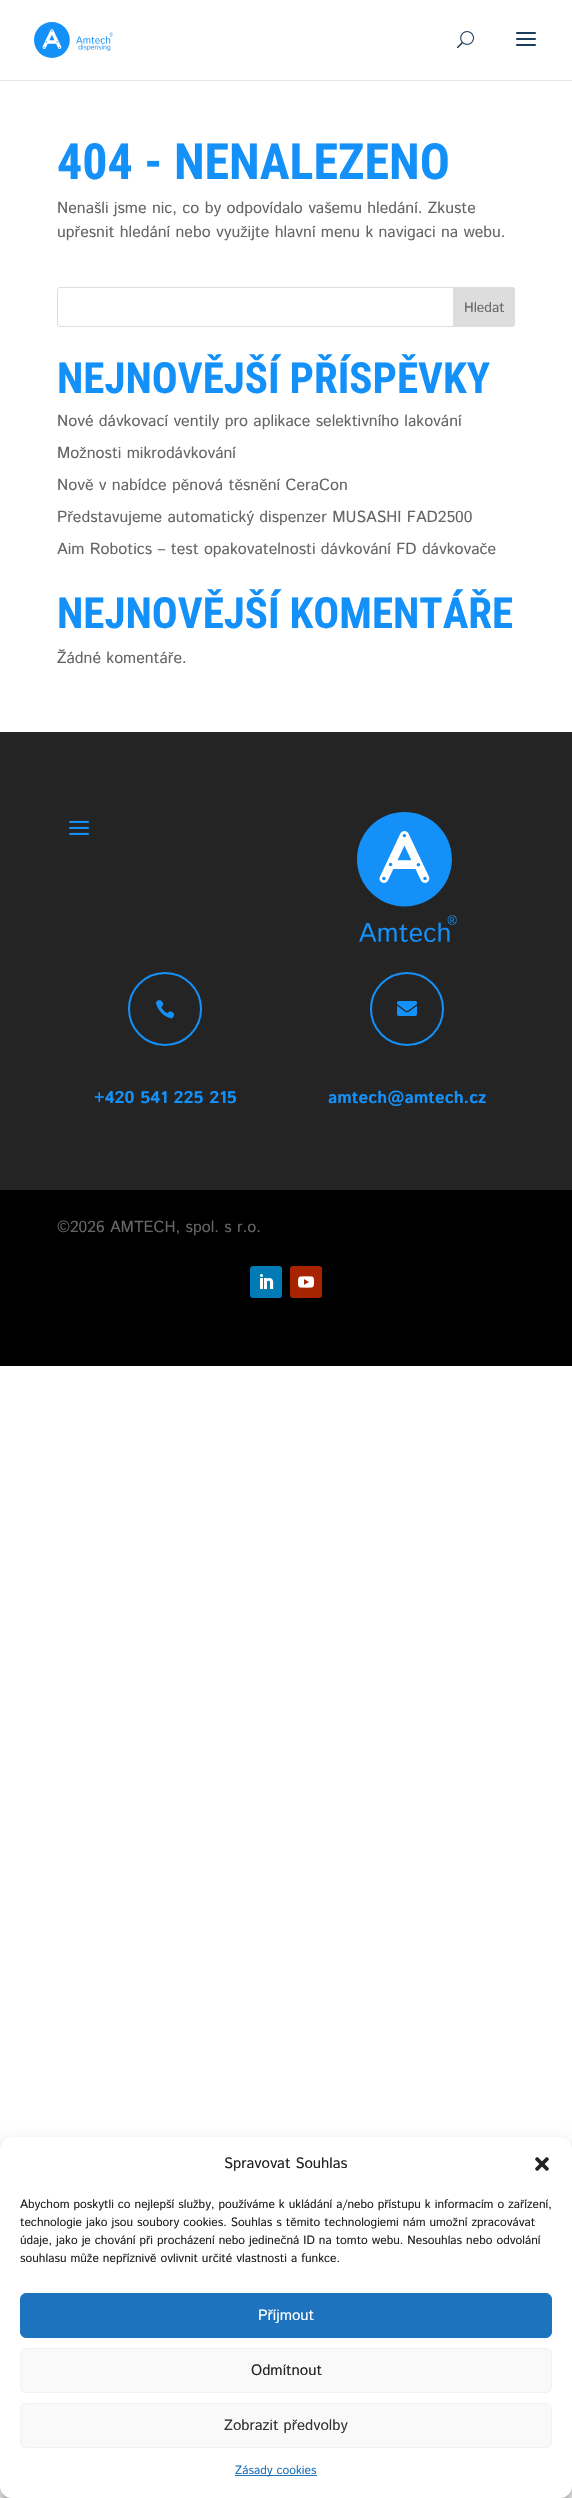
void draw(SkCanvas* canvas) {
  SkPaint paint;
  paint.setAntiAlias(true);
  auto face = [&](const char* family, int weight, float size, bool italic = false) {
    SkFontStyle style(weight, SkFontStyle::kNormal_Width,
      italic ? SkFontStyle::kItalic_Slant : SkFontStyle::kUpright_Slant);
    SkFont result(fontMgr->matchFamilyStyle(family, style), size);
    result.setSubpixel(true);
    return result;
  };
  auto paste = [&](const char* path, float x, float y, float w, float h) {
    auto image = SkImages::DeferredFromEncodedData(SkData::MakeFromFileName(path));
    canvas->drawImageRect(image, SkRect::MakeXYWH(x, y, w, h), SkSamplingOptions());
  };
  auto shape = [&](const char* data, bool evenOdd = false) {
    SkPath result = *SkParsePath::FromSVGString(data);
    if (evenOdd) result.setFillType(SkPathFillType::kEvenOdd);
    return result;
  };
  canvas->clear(0xffffffff);
  paint.setColor(0xffe6e6e6);
  canvas->drawRect(SkRect::MakeXYWH(0, 80, 572, 1), paint);
  paste("img/1.png", 34, 22, 79, 36);
  paste("img/2.png", 457, 31, 17, 18);
  paste("img/3.png", 516, 32, 20, 14);
  paint.setStroke(true);
  paint.setStrokeWidth(1);
  paint.setColor(0xffdddddd);
  canvas->drawRoundRect(SkRect::MakeXYWH(57.5f, 287.5f, 457, 39), 2.5f, 2.5f, paint);
  paint.setStroke(false);
  canvas->drawPath(shape("M453.5 287.5H512C513.5 287.5 514.5 288.5 514.5 290V324C514.5 325.5 513.5 326.5 512 326.5H453.5Z"), paint);
  paint.setStroke(true);
  canvas->drawPath(shape("M453.5 287.5H512C513.5 287.5 514.5 288.5 514.5 290V324C514.5 325.5 513.5 326.5 512 326.5H453.5Z"), paint);
  paint.setStroke(false);
  paint.setColor(0xff242424);
  canvas->drawRect(SkRect::MakeXYWH(0, 732, 572, 458), paint);
  paste("img/4.png", 69, 820, 20, 15);
  paste("img/5.png", 357, 812, 100, 130);
  paint.setStroke(true);
  paint.setStrokeWidth(2);
  paint.setColor(0xff1491f9);
  canvas->drawCircle(165, 1009, 36, paint);
  paste("img/6.png", 155, 1000, 20, 19);
  canvas->drawCircle(407, 1009, 36, paint);
  paste("img/7.png", 397, 1001, 20, 15);
  paint.setStroke(false);
  paint.setColor(0xff000000);
  canvas->drawRect(SkRect::MakeXYWH(0, 1190, 572, 176), paint);
  paint.setColor(0xff007bb6);
  canvas->drawRoundRect(SkRect::MakeXYWH(250, 1266, 32, 32), 3, 3, paint);
  paste("img/8.png", 260, 1274, 14, 15);
  paint.setColor(0xffa82400);
  canvas->drawRoundRect(SkRect::MakeXYWH(290, 1266, 32, 32), 3, 3, paint);
  paste("img/9.png", 298, 1276, 16, 12);
  paint.setColor(0x3b000000);
  paint.setMaskFilter(SkMaskFilter::MakeBlur(kNormal_SkBlurStyle, 3));
  canvas->drawRoundRect(SkRect::MakeXYWH(0, 2143, 572, 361), 12, 12, paint);
  paint.setMaskFilter(nullptr);
  paint.setColor(0x30000000);
  paint.setMaskFilter(SkMaskFilter::MakeBlur(kNormal_SkBlurStyle, 10));
  canvas->drawRoundRect(SkRect::MakeXYWH(0, 2147, 572, 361), 12, 12, paint);
  paint.setMaskFilter(nullptr);
  paint.setColor(0xffffffff);
  canvas->drawRoundRect(SkRect::MakeXYWH(0, 2137, 572, 361), 12, 12, paint);
  paste("img/10.png", 535, 2157, 14, 14);
  paint.setColor(0xff1e73be);
  canvas->drawRoundRect(SkRect::MakeXYWH(20.5f, 2293.5f, 531, 44), 5.5f, 5.5f, paint);
  paint.setStroke(true);
  paint.setStrokeWidth(1);
  canvas->drawRoundRect(SkRect::MakeXYWH(20.5f, 2293.5f, 531, 44), 5.5f, 5.5f, paint);
  paint.setStroke(false);
  paint.setColor(0xfff9f9f9);
  canvas->drawRoundRect(SkRect::MakeXYWH(20.5f, 2348.5f, 531, 44), 5.5f, 5.5f, paint);
  paint.setStroke(true);
  paint.setColor(0xfff2f2f2);
  canvas->drawRoundRect(SkRect::MakeXYWH(20.5f, 2348.5f, 531, 44), 5.5f, 5.5f, paint);
  paint.setStroke(false);
  paint.setColor(0xfff9f9f9);
  canvas->drawRoundRect(SkRect::MakeXYWH(20.5f, 2403.5f, 531, 44), 5.5f, 5.5f, paint);
  paint.setStroke(true);
  paint.setColor(0xfff2f2f2);
  canvas->drawRoundRect(SkRect::MakeXYWH(20.5f, 2403.5f, 531, 44), 5.5f, 5.5f, paint);
  paint.setStroke(false);
  paint.setColor(0xff1e73be);
  canvas->drawRect(SkRect::MakeXYWH(235, 2475, 82, 1), paint);
  auto f0 = face("Roboto Condensed", 700, 50);
  paint.setColor(0xff1491f9);
  canvas->drawString("404 - NENALEZENO", 57, 179, f0, paint);
  auto f1 = face("Istok Web", 400, 16);
  paint.setColor(0xff666666);
  canvas->drawString("Nenašli jsme nic, co by odpovídalo vašemu hledání. Zkuste", 57, 213, f1, paint);
  canvas->drawString("upřesnit hledání nebo využijte hlavní menu k navigaci na webu.", 57, 237, f1, paint);
  auto f2 = face("Istok Web", 400, 14);
  canvas->drawString("Hledat", 464, 312, f2, paint);
  auto f3 = face("Roboto Condensed", 700, 43);
  paint.setColor(0xff1491f9);
  canvas->drawString("NEJNOVĚJŠÍ PŘÍSPĚVKY", 57, 393, f3, paint);
  paint.setColor(0xff666666);
  {
    const struct { const char* s; float x, y; } items[] = {
      {"Nové dávkovací ventily pro aplikace selektivního lakování", 57, 426},
      {"Možnosti mikrodávkování", 57, 458},
      {"Nově v nabídce pěnová těsnění CeraCon", 57, 490},
      {"Představujeme automatický dispenzer MUSASHI FAD2500", 57, 522},
      {"Aim Robotics – test opakovatelnosti dávkování FD dávkovače", 57, 554},
    };
    for (auto [s, x, y] : items) {
      canvas->drawString(s, x, y, f1, paint);
    }
  }
  paint.setColor(0xff1491f9);
  canvas->drawString("NEJNOVĚJŠÍ KOMENTÁŘE", 57, 628, f3, paint);
  paint.setColor(0xff666666);
  canvas->drawString("Žádné komentáře.", 57, 663, f1, paint);
  auto f4 = face("Istok Web", 700, 17);
  paint.setColor(0xff1491f9);
  canvas->drawString("+420 541 225 215", 94, 1103, f4, paint);
  canvas->drawString("amtech@amtech.cz", 328, 1103, f4, paint);
  paint.setColor(0xff666666);
  canvas->drawString("©2026 AMTECH, spol. s r.o.", 57, 1232, f1, paint);
  auto f5 = face("Istok Web", 400, 15);
  paint.setColor(0xff222222);
  canvas->drawString("Spravovat Souhlas", 224, 2168, f5, paint);
  auto f6 = face("Istok Web", 400, 12);
  {
    const struct { const char* s; float x, y; } items[] = {
      {"Abychom poskytli co nejlepší služby, používáme k ukládání a/nebo přístupu k informacím o zařízení,", 20, 2208},
      {"technologie jako jsou soubory cookies. Souhlas s těmito technologiemi nám umožní zpracovávat", 20, 2226},
      {"údaje, jako je chování při procházení nebo jedinečná ID na tomto webu. Nesouhlas nebo odvolání", 20, 2244},
      {"souhlasu může nepříznivě ovlivnit určité vlastnosti a funkce.", 20, 2262},
    };
    for (auto [s, x, y] : items) {
      canvas->drawString(s, x, y, f6, paint);
    }
  }
  paint.setColor(0xffffffff);
  canvas->drawString("Příjmout", 258, 2320, f5, paint);
  paint.setColor(0xff222222);
  canvas->drawString("Odmítnout", 251, 2375, f5, paint);
  paint.setColor(0xff333333);
  canvas->drawString("Zobrazit předvolby", 224, 2430, f5, paint);
  paint.setColor(0xff1e73be);
  canvas->drawString("Zásady cookies", 235, 2474, f6, paint);
}
